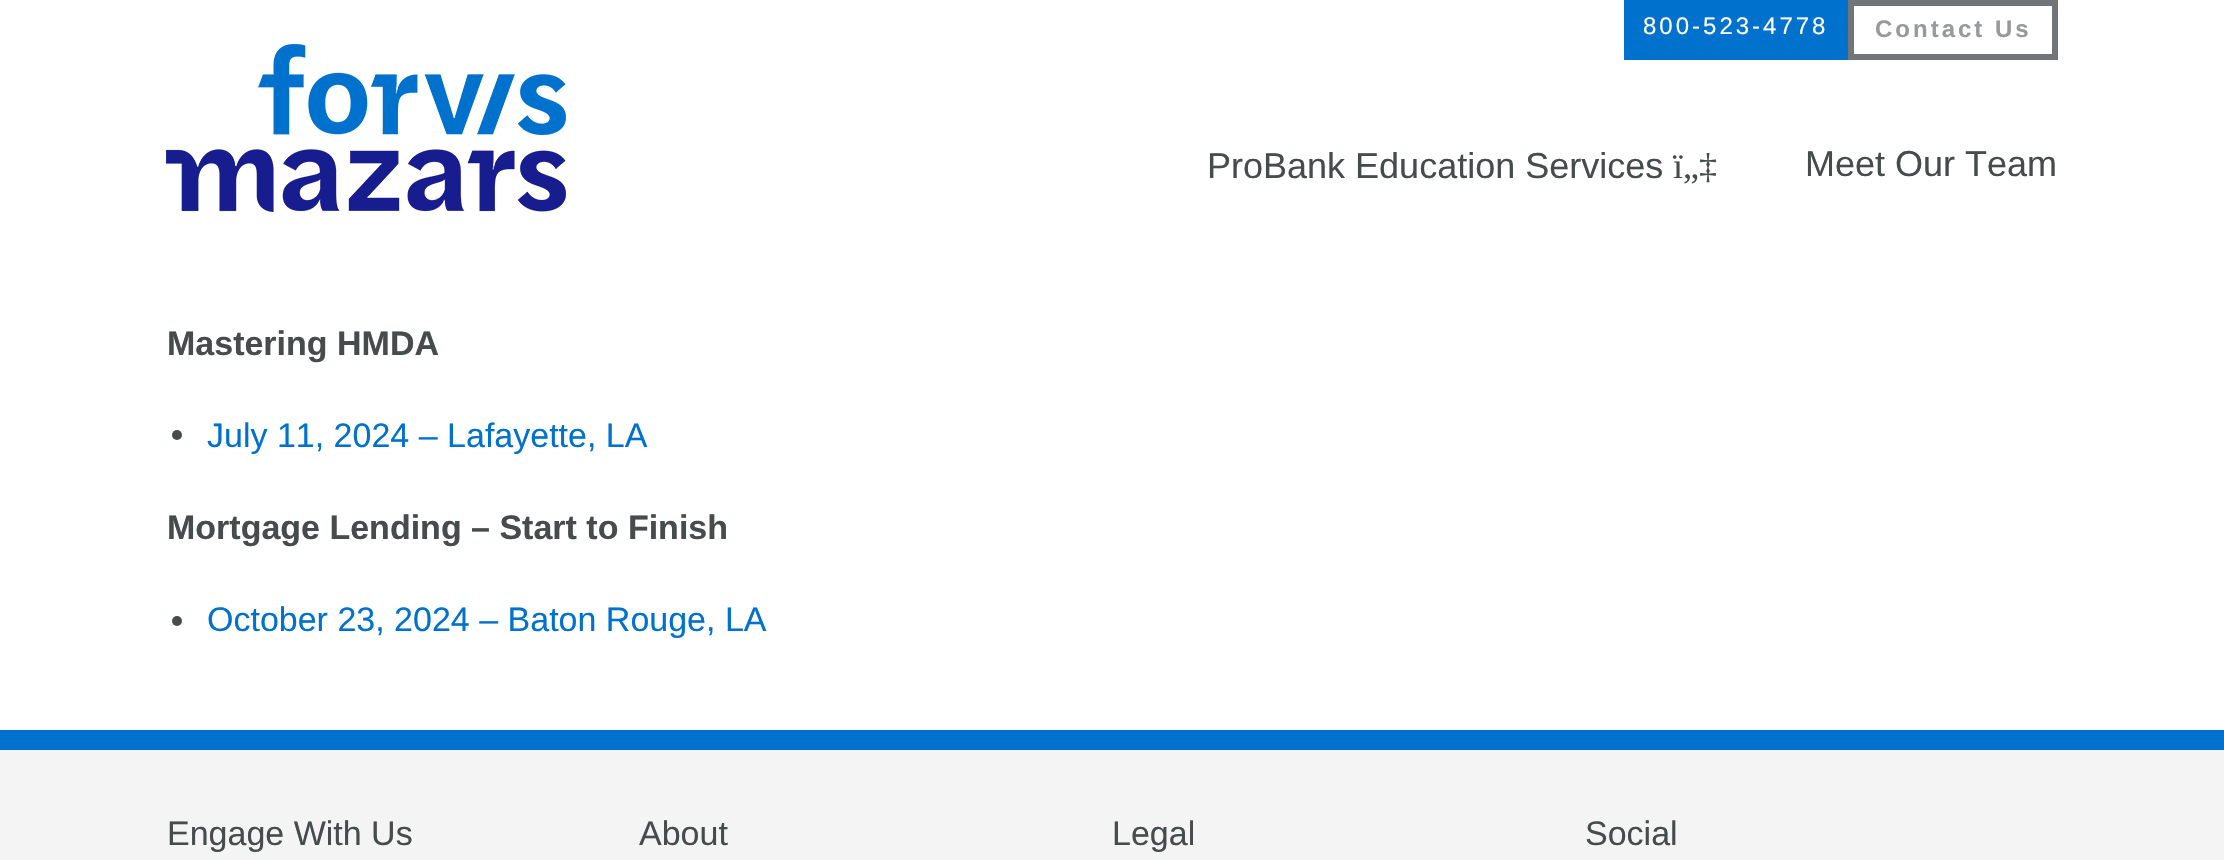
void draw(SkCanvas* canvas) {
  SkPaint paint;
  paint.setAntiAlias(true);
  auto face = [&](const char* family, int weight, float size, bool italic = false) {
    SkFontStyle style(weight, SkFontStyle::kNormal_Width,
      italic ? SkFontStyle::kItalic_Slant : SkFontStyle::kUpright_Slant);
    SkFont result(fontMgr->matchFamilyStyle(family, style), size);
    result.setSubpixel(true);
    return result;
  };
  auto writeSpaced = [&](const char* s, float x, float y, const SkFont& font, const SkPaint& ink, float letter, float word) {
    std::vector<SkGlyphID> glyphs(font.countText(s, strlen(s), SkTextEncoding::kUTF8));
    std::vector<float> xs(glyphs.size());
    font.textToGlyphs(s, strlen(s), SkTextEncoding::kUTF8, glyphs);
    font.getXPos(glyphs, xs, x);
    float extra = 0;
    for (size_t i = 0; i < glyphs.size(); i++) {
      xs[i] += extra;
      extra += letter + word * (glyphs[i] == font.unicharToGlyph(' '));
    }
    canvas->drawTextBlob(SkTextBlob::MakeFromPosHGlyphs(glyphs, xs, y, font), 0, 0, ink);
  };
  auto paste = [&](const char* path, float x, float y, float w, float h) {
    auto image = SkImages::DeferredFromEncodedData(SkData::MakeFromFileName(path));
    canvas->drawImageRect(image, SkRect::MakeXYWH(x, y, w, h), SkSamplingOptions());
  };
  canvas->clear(0xffffffff);
  paste("img/1.png", 166, 44, 400, 168);
  paint.setColor(0xff0072ce);
  canvas->drawRect(SkRect::MakeXYWH(1624, 0, 224, 60), paint);
  paint.setStroke(true);
  paint.setStrokeWidth(6);
  paint.setColor(0xff727578);
  canvas->drawRect(SkRect::MakeXYWH(1851, 3, 204, 54), paint);
  paint.setStroke(false);
  paint.setColor(0xff464b4b);
  canvas->drawCircle(177, 435, 5, paint);
  canvas->drawCircle(177, 621, 5, paint);
  paint.setColor(0xfff4f4f4);
  canvas->drawRect(SkRect::MakeXYWH(0, 750, 2224, 110), paint);
  paint.setColor(0xff0072ce);
  canvas->drawRect(SkRect::MakeXYWH(0, 730, 2224, 20), paint);
  auto f0 = face("Liberation Sans", 400, 24);
  paint.setColor(0xffffffff);
  writeSpaced("800-523-4778", 1643, 34, f0, paint, 3, 0);
  auto f1 = face("Liberation Sans", 700, 24);
  paint.setColor(0xff97999b);
  writeSpaced("Contact Us", 1875, 37, f1, paint, 3, 0);
  auto f2 = face("Liberation Sans", 400, 36);
  paint.setColor(0xff464b4b);
  canvas->drawString("ProBank Education Services", 1207, 178, f2, paint);
  auto f3 = face("Liberation Serif", 400, 36);
  canvas->drawString("ï„‡", 1673, 178, f3, paint);
  canvas->drawString("Meet Our Team", 1805, 176, f2, paint);
  auto f4 = face("Liberation Sans", 700, 34);
  canvas->drawString("Mastering HMDA", 167, 355, f4, paint);
  auto f5 = face("Liberation Sans", 400, 34);
  paint.setColor(0xff0072ce);
  canvas->drawString("July 11, 2024 – Lafayette, LA", 207, 447, f5, paint);
  paint.setColor(0xff464b4b);
  canvas->drawString("Mortgage Lending – Start to Finish", 167, 539, f4, paint);
  paint.setColor(0xff0072ce);
  canvas->drawString("October 23, 2024 – Baton Rouge, LA", 207, 631, f5, paint);
  paint.setColor(0xff464b4b);
  {
    const struct { const char* s; float x, y; } items[] = {
      {"Engage With Us", 167, 845},
      {"About", 639, 845},
      {"Legal", 1112, 845},
      {"Social", 1585, 845},
    };
    for (auto [s, x, y] : items) {
      canvas->drawString(s, x, y, f5, paint);
    }
  }
}
